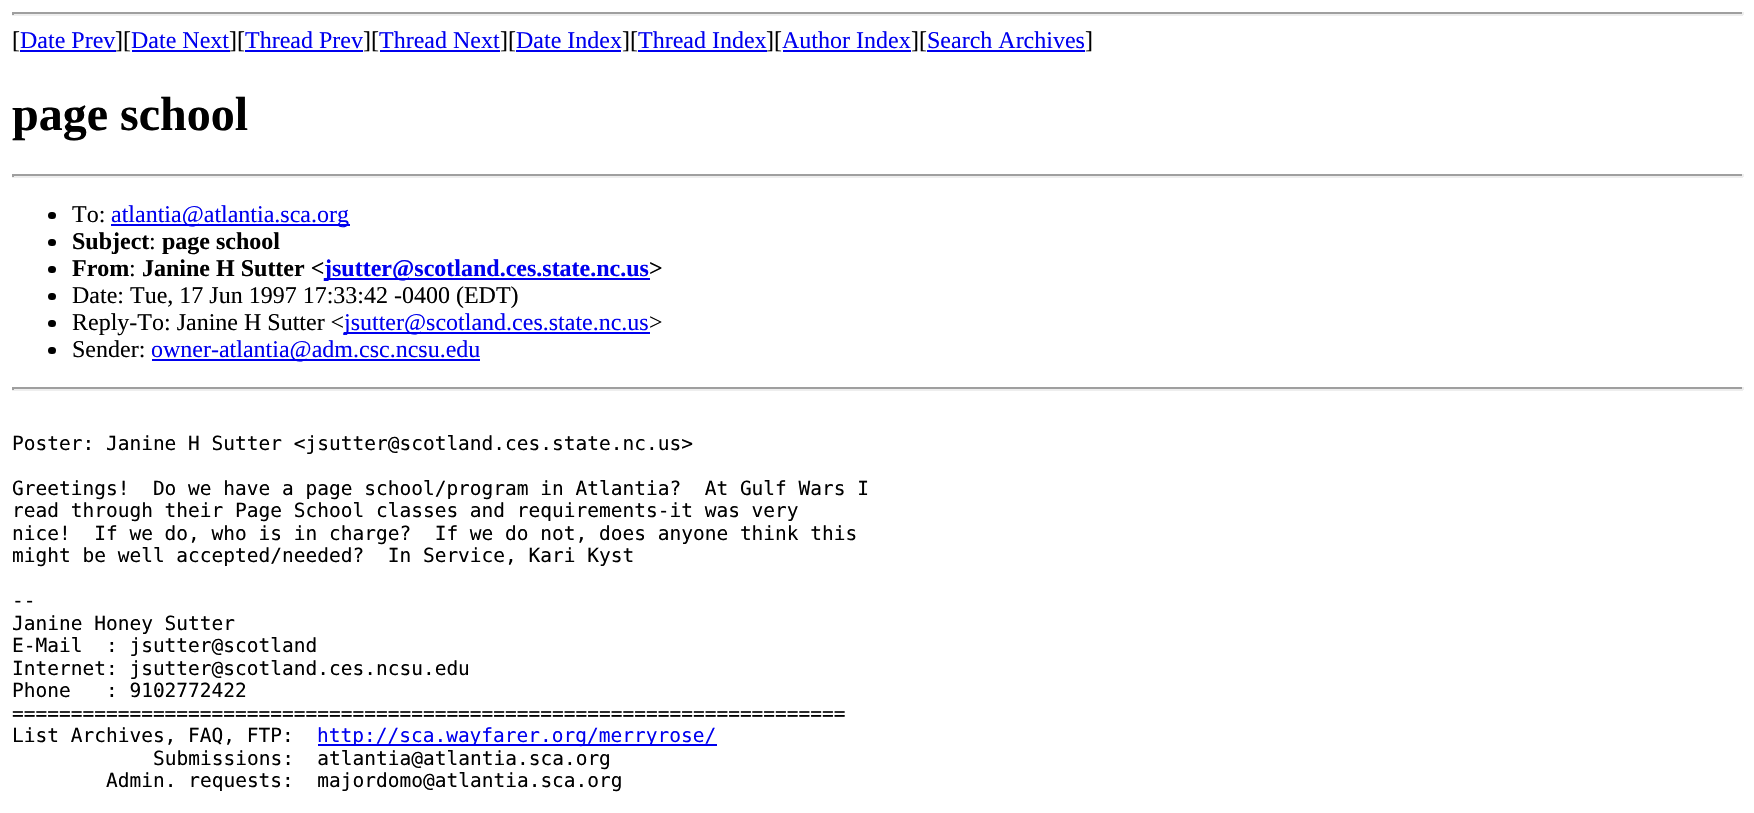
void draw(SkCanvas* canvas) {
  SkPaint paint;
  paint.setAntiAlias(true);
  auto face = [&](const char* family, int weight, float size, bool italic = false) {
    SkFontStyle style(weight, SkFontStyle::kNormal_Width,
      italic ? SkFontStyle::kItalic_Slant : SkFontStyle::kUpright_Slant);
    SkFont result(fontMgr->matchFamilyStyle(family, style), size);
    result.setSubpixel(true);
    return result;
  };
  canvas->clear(0xffffffff);
  {
    const struct { float x, y, w, h; SkColor color; } items[] = {
      {12, 12, 1731, 2, 0xff9f9f9f},
      {1742, 12, 2, 3, 0xffeeeeee},
      {12, 14, 1731, 2, 0xffeeeeee},
      {12, 12, 2, 3, 0xff9f9f9f},
      {20, 50, 96, 2, 0xff0000ee},
      {132, 50, 98, 2, 0xff0000ee},
      {245, 50, 118, 2, 0xff0000ee},
      {380, 50, 120, 2, 0xff0000ee},
      {516, 50, 105, 2, 0xff0000ee},
      {638, 50, 129, 2, 0xff0000ee},
      {783, 50, 128, 2, 0xff0000ee},
      {927, 50, 158, 2, 0xff0000ee},
      {12, 174, 1731, 2, 0xff9f9f9f},
      {1742, 174, 2, 3, 0xffeeeeee},
      {12, 176, 1731, 2, 0xffeeeeee},
      {12, 174, 2, 3, 0xff9f9f9f},
    };
    for (auto [x, y, w, h, color] : items) {
      paint.setColor(color);
      canvas->drawRect(SkRect::MakeXYWH(x, y, w, h), paint);
    }
  }
  paint.setColor(0xff000000);
  canvas->drawRoundRect(SkRect::MakeXYWH(48, 212, 8, 7), 3.5f, 3.5f, paint);
  paint.setColor(0xff0000ee);
  canvas->drawRect(SkRect::MakeXYWH(111, 224, 239, 2), paint);
  paint.setColor(0xff000000);
  canvas->drawRoundRect(SkRect::MakeXYWH(48, 239, 8, 7), 3.5f, 3.5f, paint);
  canvas->drawRoundRect(SkRect::MakeXYWH(48, 266, 8, 7), 3.5f, 3.5f, paint);
  paint.setColor(0xff0000ee);
  canvas->drawRect(SkRect::MakeXYWH(324, 278, 326, 2), paint);
  paint.setColor(0xff000000);
  canvas->drawRoundRect(SkRect::MakeXYWH(48, 293, 8, 7), 3.5f, 3.5f, paint);
  canvas->drawRoundRect(SkRect::MakeXYWH(48, 320, 8, 7), 3.5f, 3.5f, paint);
  paint.setColor(0xff0000ee);
  canvas->drawRect(SkRect::MakeXYWH(344, 332, 306, 2), paint);
  paint.setColor(0xff000000);
  canvas->drawRoundRect(SkRect::MakeXYWH(48, 347, 8, 7), 3.5f, 3.5f, paint);
  {
    const struct { float x, y, w, h; SkColor color; } items[] = {
      {152, 359, 328, 2, 0xff0000ee},
      {12, 387, 1731, 2, 0xff9f9f9f},
      {1742, 387, 2, 3, 0xffeeeeee},
      {12, 389, 1731, 2, 0xffeeeeee},
      {12, 387, 2, 3, 0xff9f9f9f},
      {318, 744, 399, 2, 0xff0000ee},
    };
    for (auto [x, y, w, h, color] : items) {
      paint.setColor(color);
      canvas->drawRect(SkRect::MakeXYWH(x, y, w, h), paint);
    }
  }
  auto f0 = face("Liberation Serif", 400, 24);
  paint.setColor(0xff000000);
  canvas->drawString("[", 12, 48, f0, paint);
  paint.setColor(0xff0000ee);
  canvas->drawString("Date Prev", 20, 48, f0, paint);
  paint.setColor(0xff000000);
  canvas->drawString("][", 115, 48, f0, paint);
  paint.setColor(0xff0000ee);
  canvas->drawString("Date Next", 131, 48, f0, paint);
  paint.setColor(0xff000000);
  canvas->drawString("][", 229, 48, f0, paint);
  paint.setColor(0xff0000ee);
  canvas->drawString("Thread Prev", 245, 48, f0, paint);
  paint.setColor(0xff000000);
  canvas->drawString("][", 363, 48, f0, paint);
  paint.setColor(0xff0000ee);
  canvas->drawString("Thread Next", 379, 48, f0, paint);
  paint.setColor(0xff000000);
  canvas->drawString("][", 500, 48, f0, paint);
  paint.setColor(0xff0000ee);
  canvas->drawString("Date Index", 516, 48, f0, paint);
  paint.setColor(0xff000000);
  canvas->drawString("][", 622, 48, f0, paint);
  paint.setColor(0xff0000ee);
  canvas->drawString("Thread Index", 638, 48, f0, paint);
  paint.setColor(0xff000000);
  canvas->drawString("][", 766, 48, f0, paint);
  paint.setColor(0xff0000ee);
  canvas->drawString("Author Index", 782, 48, f0, paint);
  paint.setColor(0xff000000);
  canvas->drawString("][", 911, 48, f0, paint);
  paint.setColor(0xff0000ee);
  canvas->drawString("Search Archives", 927, 48, f0, paint);
  paint.setColor(0xff000000);
  canvas->drawString("]", 1085, 48, f0, paint);
  auto f1 = face("Liberation Serif", 700, 48);
  canvas->drawString("page school", 12, 130, f1, paint);
  canvas->drawString("To:", 72, 222, f0, paint);
  paint.setColor(0xff0000ee);
  canvas->drawString("atlantia@atlantia.sca.org", 111, 222, f0, paint);
  auto f2 = face("Liberation Serif", 700, 24);
  paint.setColor(0xff000000);
  canvas->drawString("Subject", 72, 249, f2, paint);
  canvas->drawString(":", 149, 249, f0, paint);
  canvas->drawString("page school", 162, 249, f2, paint);
  canvas->drawString("From", 72, 276, f2, paint);
  canvas->drawString(":", 129, 276, f0, paint);
  canvas->drawString("Janine H Sutter <", 142, 276, f2, paint);
  paint.setColor(0xff0000ee);
  canvas->drawString("jsutter@scotland.ces.state.nc.us", 324, 276, f2, paint);
  paint.setColor(0xff000000);
  canvas->drawString(">", 649, 276, f2, paint);
  canvas->drawString("Date: Tue, 17 Jun 1997 17:33:42 -0400 (EDT)", 72, 303, f0, paint);
  canvas->drawString("Reply-To: Janine H Sutter <", 72, 330, f0, paint);
  paint.setColor(0xff0000ee);
  canvas->drawString("jsutter@scotland.ces.state.nc.us", 344, 330, f0, paint);
  paint.setColor(0xff000000);
  canvas->drawString(">", 649, 330, f0, paint);
  canvas->drawString("Sender:", 72, 357, f0, paint);
  paint.setColor(0xff0000ee);
  canvas->drawString("owner-atlantia@adm.csc.ncsu.edu", 151, 357, f0, paint);
  auto f3 = face("DejaVu Sans Mono", 400, 19.5f);
  paint.setColor(0xff000000);
  {
    const struct { const char* s; float x, y; } items[] = {
      {"Poster: Janine H Sutter <jsutter@scotland.ces.state.nc.us>", 12, 450},
      {"Greetings!  Do we have a page school/program in Atlantia?  At Gulf Wars I", 12, 495},
      {"read through their Page School classes and requirements-it was very", 12, 517},
      {"nice!  If we do, who is in charge?  If we do not, does anyone think this", 12, 540},
      {"might be well accepted/needed?  In Service, Kari Kyst", 12, 562},
      {"--", 12, 607},
      {"Janine Honey Sutter", 12, 630},
      {"E-Mail  : jsutter@scotland", 12, 652},
      {"Internet: jsutter@scotland.ces.ncsu.edu", 12, 675},
      {"Phone   : 9102772422", 12, 697},
      {"=======================================================================", 12, 720},
      {"List Archives, FAQ, FTP:", 12, 742},
    };
    for (auto [s, x, y] : items) {
      canvas->drawString(s, x, y, f3, paint);
    }
  }
  paint.setColor(0xff0000ee);
  canvas->drawString("http://sca.wayfarer.org/merryrose/", 317, 742, f3, paint);
  paint.setColor(0xff000000);
  canvas->drawString("Submissions:  atlantia@atlantia.sca.org", 153, 765, f3, paint);
  canvas->drawString("Admin. requests:  majordomo@atlantia.sca.org", 106, 787, f3, paint);
}
